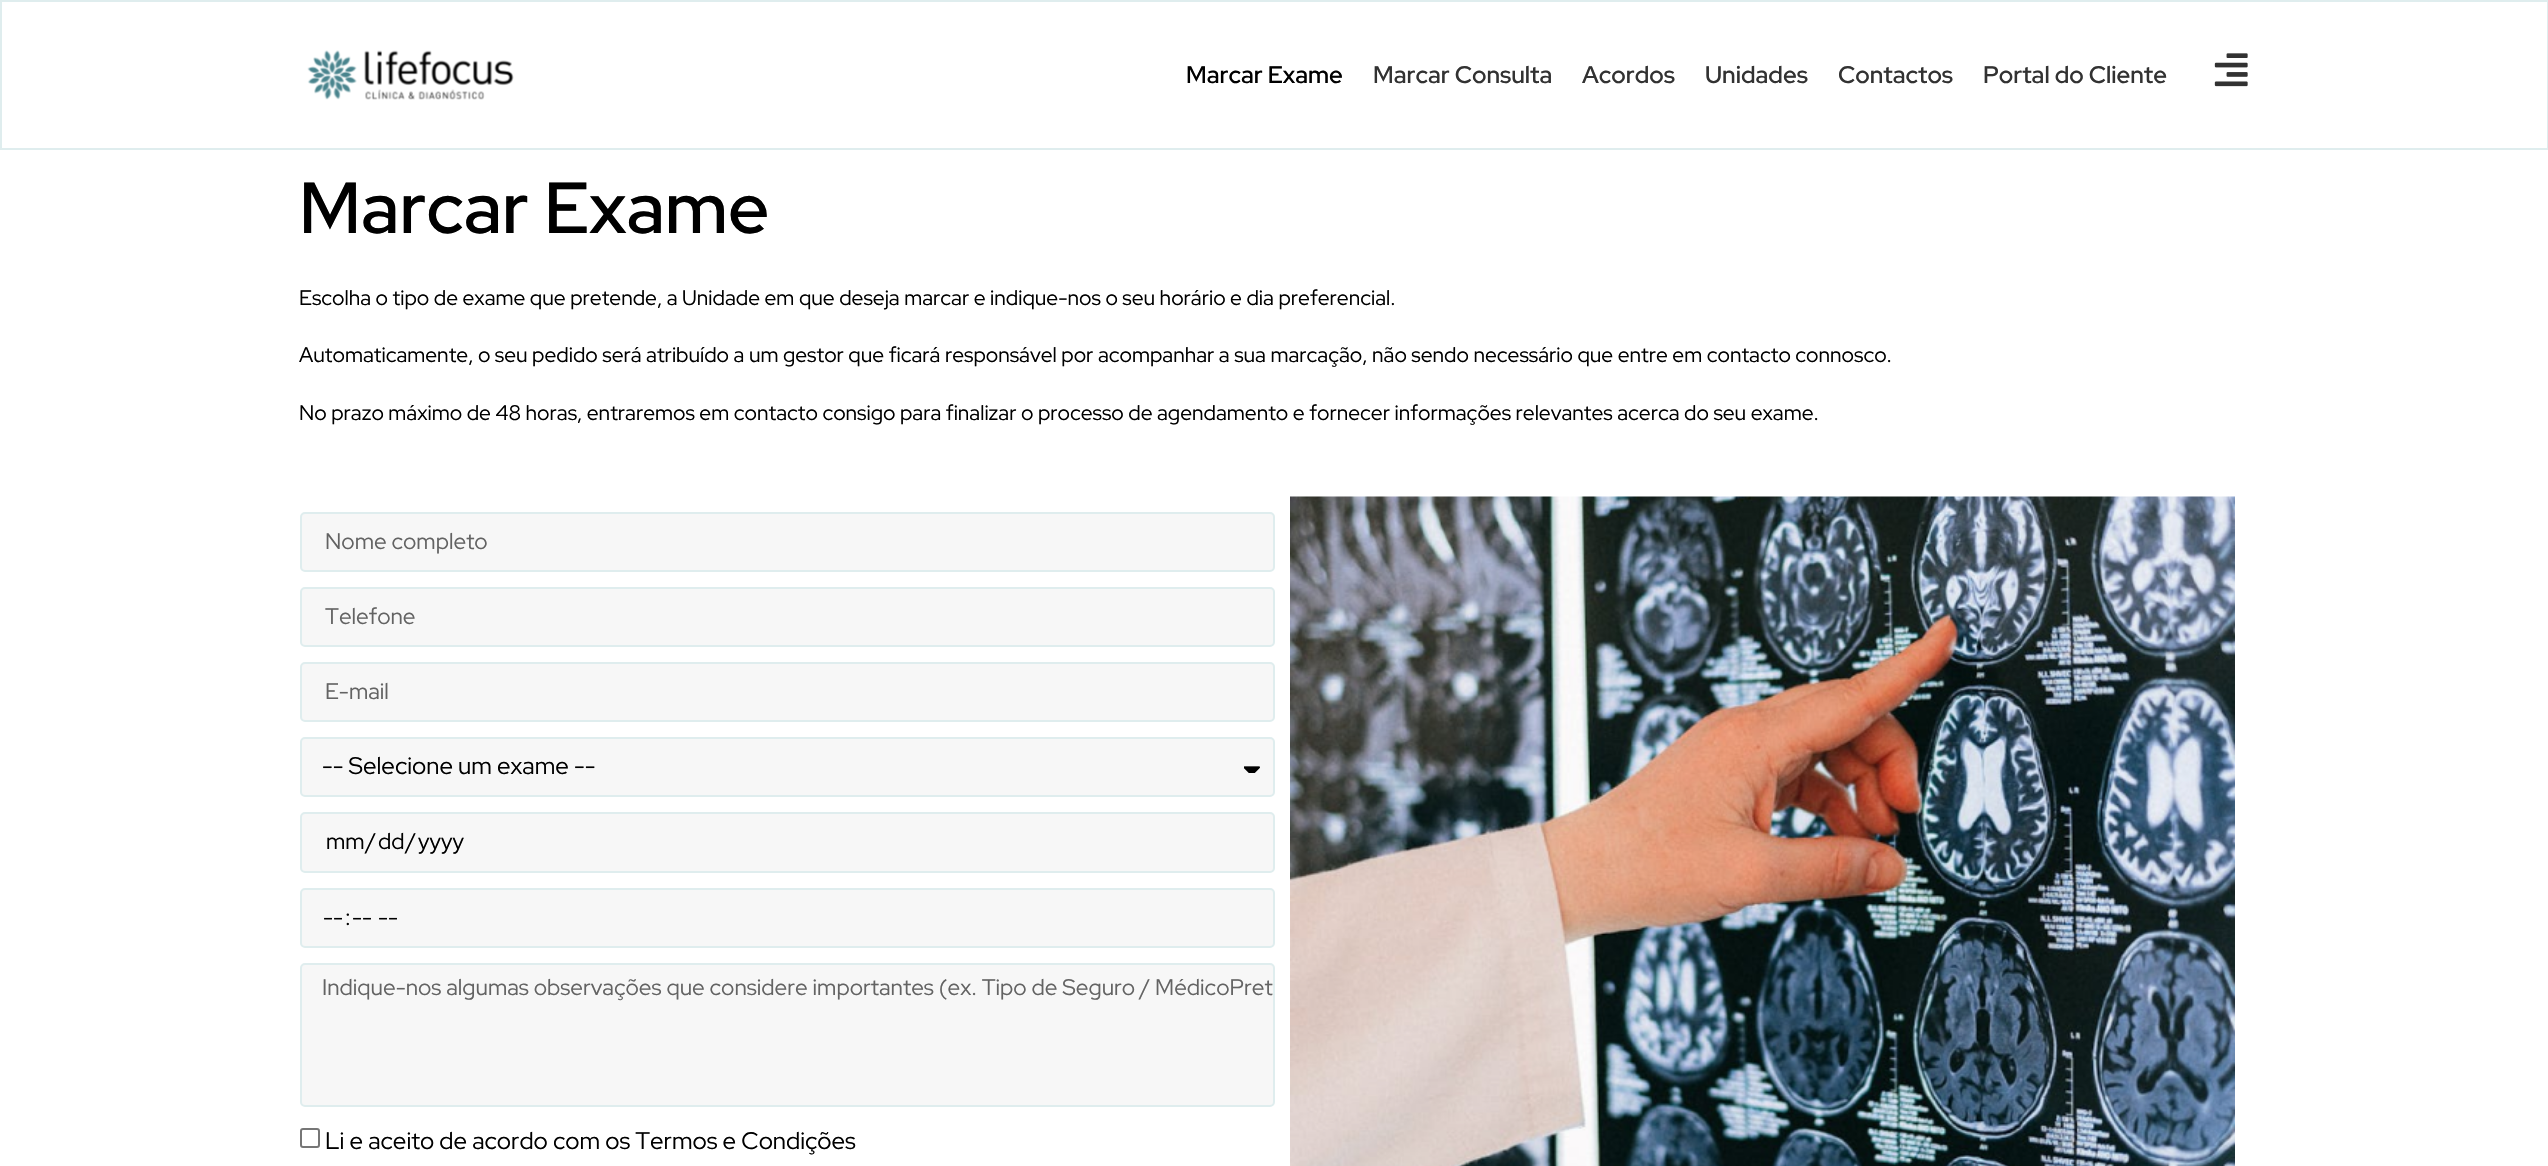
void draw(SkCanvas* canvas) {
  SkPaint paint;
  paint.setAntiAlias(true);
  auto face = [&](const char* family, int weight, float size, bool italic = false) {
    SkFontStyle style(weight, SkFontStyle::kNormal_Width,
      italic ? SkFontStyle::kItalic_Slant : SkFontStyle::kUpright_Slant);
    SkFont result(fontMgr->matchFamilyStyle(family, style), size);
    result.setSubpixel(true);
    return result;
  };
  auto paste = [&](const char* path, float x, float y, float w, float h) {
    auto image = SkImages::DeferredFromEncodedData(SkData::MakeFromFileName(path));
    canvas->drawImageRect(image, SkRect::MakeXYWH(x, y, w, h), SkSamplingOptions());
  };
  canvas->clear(0xffffffff);
  paint.setStroke(true);
  paint.setStrokeWidth(2);
  paint.setColor(0xffdfedee);
  canvas->drawRect(SkRect::MakeXYWH(1, 1, 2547, 148), paint);
  paste("img/1.png", 307, 50, 207, 50);
  paste("img/2.png", 2214, 53, 34, 34);
  paint.setStroke(false);
  paint.setColor(0xfff7f7f7);
  canvas->drawRoundRect(SkRect::MakeXYWH(301, 513, 973, 58), 4, 4, paint);
  paint.setStroke(true);
  paint.setColor(0xffdfedee);
  canvas->drawRoundRect(SkRect::MakeXYWH(301, 513, 973, 58), 4, 4, paint);
  paint.setStroke(false);
  paint.setColor(0xfff7f7f7);
  canvas->drawRoundRect(SkRect::MakeXYWH(301, 588, 973, 58), 4, 4, paint);
  paint.setStroke(true);
  paint.setColor(0xffdfedee);
  canvas->drawRoundRect(SkRect::MakeXYWH(301, 588, 973, 58), 4, 4, paint);
  paint.setStroke(false);
  paint.setColor(0xfff7f7f7);
  canvas->drawRoundRect(SkRect::MakeXYWH(301, 663, 973, 58), 4, 4, paint);
  paint.setStroke(true);
  paint.setColor(0xffdfedee);
  canvas->drawRoundRect(SkRect::MakeXYWH(301, 663, 973, 58), 4, 4, paint);
  paint.setStroke(false);
  paint.setColor(0xfff7f7f7);
  canvas->drawRoundRect(SkRect::MakeXYWH(301, 738, 973, 58), 4, 4, paint);
  paint.setStroke(true);
  paint.setColor(0xffdfedee);
  canvas->drawRoundRect(SkRect::MakeXYWH(301, 738, 973, 58), 4, 4, paint);
  paste("img/3.png", 1244, 766, 16, 7);
  paint.setStroke(false);
  paint.setColor(0xfff7f7f7);
  canvas->drawRoundRect(SkRect::MakeXYWH(301, 813, 973, 59), 4, 4, paint);
  paint.setStroke(true);
  paint.setColor(0xffdfedee);
  canvas->drawRoundRect(SkRect::MakeXYWH(301, 813, 973, 59), 4, 4, paint);
  paint.setStroke(false);
  paint.setColor(0xfff7f7f7);
  canvas->drawRoundRect(SkRect::MakeXYWH(301, 889, 973, 58), 4, 4, paint);
  paint.setStroke(true);
  paint.setColor(0xffdfedee);
  canvas->drawRoundRect(SkRect::MakeXYWH(301, 889, 973, 58), 4, 4, paint);
  paint.setStroke(false);
  paint.setColor(0xfff7f7f7);
  canvas->drawRoundRect(SkRect::MakeXYWH(301, 964, 973, 142), 4, 4, paint);
  paint.setStroke(true);
  paint.setColor(0xffdfedee);
  canvas->drawRoundRect(SkRect::MakeXYWH(301, 964, 973, 142), 4, 4, paint);
  paint.setColor(0xff767676);
  canvas->drawRoundRect(SkRect::MakeXYWH(301, 1129, 18, 18), 2, 2, paint);
  paste("img/4.png", 1290, 496, 945, 670);
  auto f0 = face("Red Hat Display", 600, 24);
  paint.setStroke(false);
  paint.setColor(0xff000000);
  canvas->drawString("Marcar Exame", 1186, 83, f0, paint);
  paint.setColor(0xff323232);
  {
    const struct { const char* s; float x, y; } items[] = {
      {"Marcar Consulta", 1373, 83},
      {"Acordos", 1582, 83},
      {"Unidades", 1705, 83},
      {"Contactos", 1838, 83},
      {"Portal do Cliente", 1983, 83},
    };
    for (auto [s, x, y] : items) {
      canvas->drawString(s, x, y, f0, paint);
    }
  }
  auto f1 = face("Red Hat Display", 600, 72);
  paint.setColor(0xff000000);
  canvas->drawString("Marcar Exame", 299, 233, f1, paint);
  auto f2 = face("Red Hat Display", 400, 21);
  {
    const struct { const char* s; float x, y; } items[] = {
      {"Escolha o tipo de exame que pretende, a Unidade em que deseja marcar e indique-nos o seu horário e dia preferencial.", 299, 305},
      {"Automaticamente, o seu pedido será atribuído a um gestor que ficará responsável por acompanhar a sua marcação, não sendo necessário que entre em contacto connosco.", 299, 362},
      {"No prazo máximo de 48 horas, entraremos em contacto consigo para finalizar o processo de agendamento e fornecer informações relevantes acerca do seu exame.", 299, 420},
    };
    for (auto [s, x, y] : items) {
      canvas->drawString(s, x, y, f2, paint);
    }
  }
  auto f3 = face("Red Hat Display", 400, 22.5f);
  paint.setColor(0xff636363);
  {
    const struct { const char* s; float x, y; } items[] = {
      {"Nome completo", 325, 549},
      {"Telefone", 325, 624},
      {"E-mail", 325, 699},
    };
    for (auto [s, x, y] : items) {
      canvas->drawString(s, x, y, f3, paint);
    }
  }
  auto f4 = face("Red Hat Display", 400, 24);
  paint.setColor(0xff000000);
  canvas->drawString("-- Selecione um exame --", 322, 774, f4, paint);
  {
    const struct { const char* s; float x, y; } items[] = {
      {"mm", 326, 849},
      {"/", 366, 849},
      {"dd", 378, 849},
      {"/", 406, 849},
      {"yyyy", 418, 849},
      {"--", 323, 925},
      {":", 345, 925},
      {"--", 352, 925},
      {"--", 378, 925},
    };
    for (auto [s, x, y] : items) {
      canvas->drawString(s, x, y, f3, paint);
    }
  }
  paint.setColor(0xff636363);
  canvas->drawString("Indique-nos algumas observações que considere importantes (ex. Tipo de Seguro / MédicoPret", 322, 995, f3, paint);
  paint.setColor(0xff000000);
  canvas->drawString("Li e aceito de acordo com os Termos e Condições", 325, 1149, f4, paint);
}
